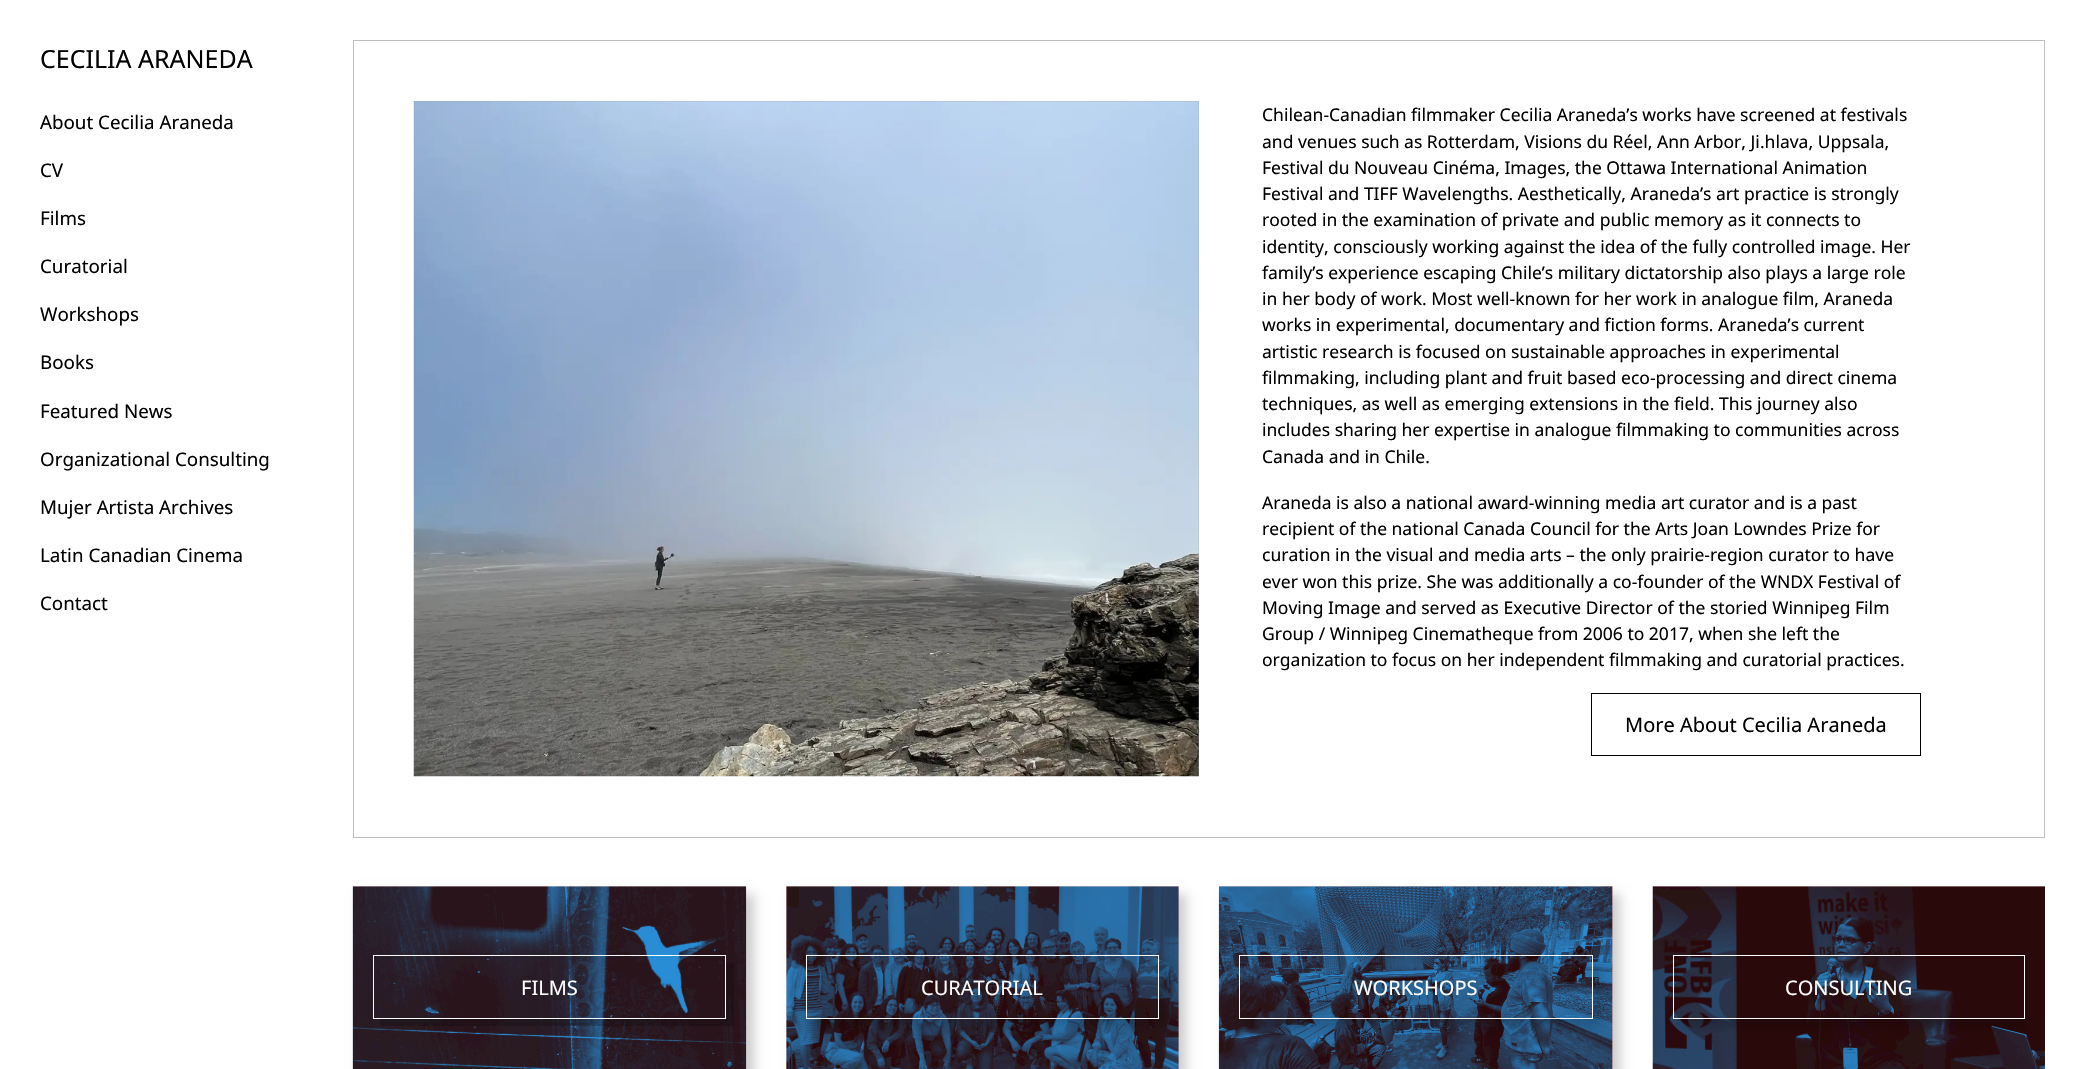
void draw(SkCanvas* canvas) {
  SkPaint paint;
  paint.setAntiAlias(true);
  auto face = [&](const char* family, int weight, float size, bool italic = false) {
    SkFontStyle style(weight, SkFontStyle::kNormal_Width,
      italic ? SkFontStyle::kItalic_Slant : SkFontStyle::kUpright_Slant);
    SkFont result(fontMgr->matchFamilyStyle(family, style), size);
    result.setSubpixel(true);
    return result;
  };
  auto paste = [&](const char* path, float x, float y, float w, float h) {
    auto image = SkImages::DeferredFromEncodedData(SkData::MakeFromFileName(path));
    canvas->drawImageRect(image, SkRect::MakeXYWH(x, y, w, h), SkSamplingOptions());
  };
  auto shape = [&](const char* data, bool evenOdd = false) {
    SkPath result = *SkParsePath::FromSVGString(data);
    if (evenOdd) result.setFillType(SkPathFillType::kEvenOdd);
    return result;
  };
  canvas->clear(0xffffffff);
  paint.setStroke(true);
  paint.setStrokeWidth(1);
  paint.setColor(0xffbfbfbf);
  canvas->drawRect(SkRect::MakeXYWH(353.5f, 40.5f, 1691, 797), paint);
  paint.setStroke(false);
  paint.setColor(0xff97a6b8);
  canvas->drawRect(SkRect::MakeXYWH(414, 101, 785, 675), paint);
  paste("img/1.png", 413, 101, 786, 676);
  paint.setStroke(true);
  paint.setColor(0xff000000);
  canvas->drawRect(SkRect::MakeXYWH(1591.5f, 693.5f, 329, 62), paint);
  paint.setStroke(false);
  paint.setColor(0x33000000);
  paint.setMaskFilter(SkMaskFilter::MakeBlur(kNormal_SkBlurStyle, 5.5f));
  canvas->drawRect(SkRect::MakeXYWH(360, 894, 394, 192), paint);
  paint.setMaskFilter(nullptr);
  paste("img/2.png", 352, 886, 395, 183);
  paint.setColor(0x33cf2e2e);
  canvas->drawRect(SkRect::MakeXYWH(353, 886, 393, 183), paint);
  paint.setColor(0x33000000);
  canvas->drawPath(shape("M380 1019V1026H734V963H726V1019Z"), paint);
  paint.setStroke(true);
  paint.setColor(0xffffffff);
  canvas->drawRect(SkRect::MakeXYWH(373.5f, 955.5f, 352, 63), paint);
  paint.setStroke(false);
  paint.setColor(0x33000000);
  paint.setMaskFilter(SkMaskFilter::MakeBlur(kNormal_SkBlurStyle, 5.5f));
  canvas->drawRect(SkRect::MakeXYWH(794, 894, 392, 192), paint);
  paint.setMaskFilter(nullptr);
  paste("img/3.png", 786, 886, 393, 183);
  paint.setColor(0x33cf2e2e);
  canvas->drawRect(SkRect::MakeXYWH(786, 886, 393, 183), paint);
  canvas->save();
  canvas->clipPath(shape("M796 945H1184V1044H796ZM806 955H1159V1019H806Z", true), true);
  paint.setColor(0x33000000);
  paint.setMaskFilter(SkMaskFilter::MakeBlur(kNormal_SkBlurStyle, 5.5f));
  canvas->drawRect(SkRect::MakeXYWH(814, 963, 352, 63), paint);
  paint.setMaskFilter(nullptr);
  canvas->restore();
  paint.setStroke(true);
  paint.setColor(0xffffffff);
  canvas->drawRect(SkRect::MakeXYWH(806.5f, 955.5f, 352, 63), paint);
  paint.setStroke(false);
  paint.setColor(0x33000000);
  paint.setMaskFilter(SkMaskFilter::MakeBlur(kNormal_SkBlurStyle, 5.5f));
  canvas->drawRect(SkRect::MakeXYWH(1226, 894, 394, 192), paint);
  paint.setMaskFilter(nullptr);
  paste("img/4.png", 1218, 886, 395, 183);
  paint.setColor(0x33cf2e2e);
  canvas->drawRect(SkRect::MakeXYWH(1219, 886, 394, 183), paint);
  canvas->save();
  canvas->clipPath(shape("M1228 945H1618V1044H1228ZM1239 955H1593V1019H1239Z", true), true);
  paint.setColor(0x33000000);
  paint.setMaskFilter(SkMaskFilter::MakeBlur(kNormal_SkBlurStyle, 5.5f));
  canvas->drawRect(SkRect::MakeXYWH(1246, 963, 354, 63), paint);
  paint.setMaskFilter(nullptr);
  canvas->restore();
  paint.setStroke(true);
  paint.setColor(0xffffffff);
  canvas->drawRect(SkRect::MakeXYWH(1239.5f, 955.5f, 353, 63), paint);
  paste("img/5.png", 1652, 886, 393, 183);
  paint.setStroke(false);
  paint.setColor(0x33cf2e2e);
  canvas->drawRect(SkRect::MakeXYWH(1653, 886, 392, 183), paint);
  canvas->save();
  canvas->clipRect(SkRect::MakeXYWH(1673, 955, 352, 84));
  canvas->clipRect(SkRect::MakeXYWH(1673, 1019, 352, 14));
  paint.setColor(0x33000000);
  paint.setMaskFilter(SkMaskFilter::MakeBlur(kNormal_SkBlurStyle, 5.5f));
  canvas->drawRect(SkRect::MakeXYWH(1680, 963, 353, 63), paint);
  paint.setMaskFilter(nullptr);
  canvas->restore();
  paint.setStroke(true);
  paint.setColor(0xffffffff);
  canvas->drawRect(SkRect::MakeXYWH(1673.5f, 955.5f, 351, 63), paint);
  auto f0 = face("Noto Sans", 400, 25);
  paint.setStroke(false);
  paint.setColor(0xff000000);
  canvas->drawString("CECILIA ARANEDA", 40, 68, f0, paint);
  auto f1 = face("Noto Sans", 400, 18.75f);
  {
    const struct { const char* s; float x, y; } items[] = {
      {"About Cecilia Araneda", 40, 129},
      {"CV", 40, 177},
      {"Films", 40, 225},
      {"Curatorial", 40, 273},
      {"Workshops", 40, 321},
      {"Books", 40, 369},
      {"Featured News", 40, 418},
      {"Organizational Consulting", 40, 466},
      {"Mujer Artista Archives", 40, 514},
      {"Latin Canadian Cinema", 40, 562},
      {"Contact", 40, 610},
    };
    for (auto [s, x, y] : items) {
      canvas->drawString(s, x, y, f1, paint);
    }
  }
  auto f2 = face("Noto Sans", 400, 17.5f);
  {
    const struct { const char* s; float x, y; } items[] = {
      {"Chilean-Canadian filmmaker Cecilia Araneda’s works have screened at festivals", 1262, 121},
      {"and venues such as Rotterdam, Visions du Réel, Ann Arbor, Ji.hlava, Uppsala,", 1262, 148},
      {"Festival du Nouveau Cinéma, Images, the Ottawa International Animation", 1262, 174},
      {"Festival and TIFF Wavelengths. Aesthetically, Araneda’s art practice is strongly", 1262, 200},
      {"rooted in the examination of private and public memory as it connects to", 1262, 226},
      {"identity, consciously working against the idea of the fully controlled image. Her", 1262, 253},
      {"family’s experience escaping Chile’s military dictatorship also plays a large role", 1262, 279},
      {"in her body of work. Most well-known for her work in analogue film, Araneda", 1262, 305},
      {"works in experimental, documentary and fiction forms. Araneda’s current", 1262, 331},
      {"artistic research is focused on sustainable approaches in experimental", 1262, 358},
      {"filmmaking, including plant and fruit based eco-processing and direct cinema", 1262, 384},
      {"techniques, as well as emerging extensions in the field. This journey also", 1262, 410},
      {"includes sharing her expertise in analogue filmmaking to communities across", 1262, 436},
      {"Canada and in Chile.", 1262, 463},
      {"Araneda is also a national award-winning media art curator and is a past", 1262, 509},
      {"recipient of the national Canada Council for the Arts Joan Lowndes Prize for", 1262, 535},
      {"curation in the visual and media arts – the only prairie-region curator to have", 1262, 561},
      {"ever won this prize. She was additionally a co-founder of the WNDX Festival of", 1262, 588},
      {"Moving Image and served as Executive Director of the storied Winnipeg Film", 1262, 614},
      {"Group / Winnipeg Cinematheque from 2006 to 2017, when she left the", 1262, 640},
      {"organization to focus on her independent filmmaking and curatorial practices.", 1262, 666},
    };
    for (auto [s, x, y] : items) {
      canvas->drawString(s, x, y, f2, paint);
    }
  }
  auto f3 = face("Noto Sans", 400, 20);
  canvas->drawString("More About Cecilia Araneda", 1625, 732, f3, paint);
  paint.setColor(0xffffffff);
  {
    const struct { const char* s; float x, y; } items[] = {
      {"FILMS", 521, 995},
      {"CURATORIAL", 921, 995},
      {"WORKSHOPS", 1354, 995},
      {"CONSULTING", 1785, 995},
    };
    for (auto [s, x, y] : items) {
      canvas->drawString(s, x, y, f3, paint);
    }
  }
}
